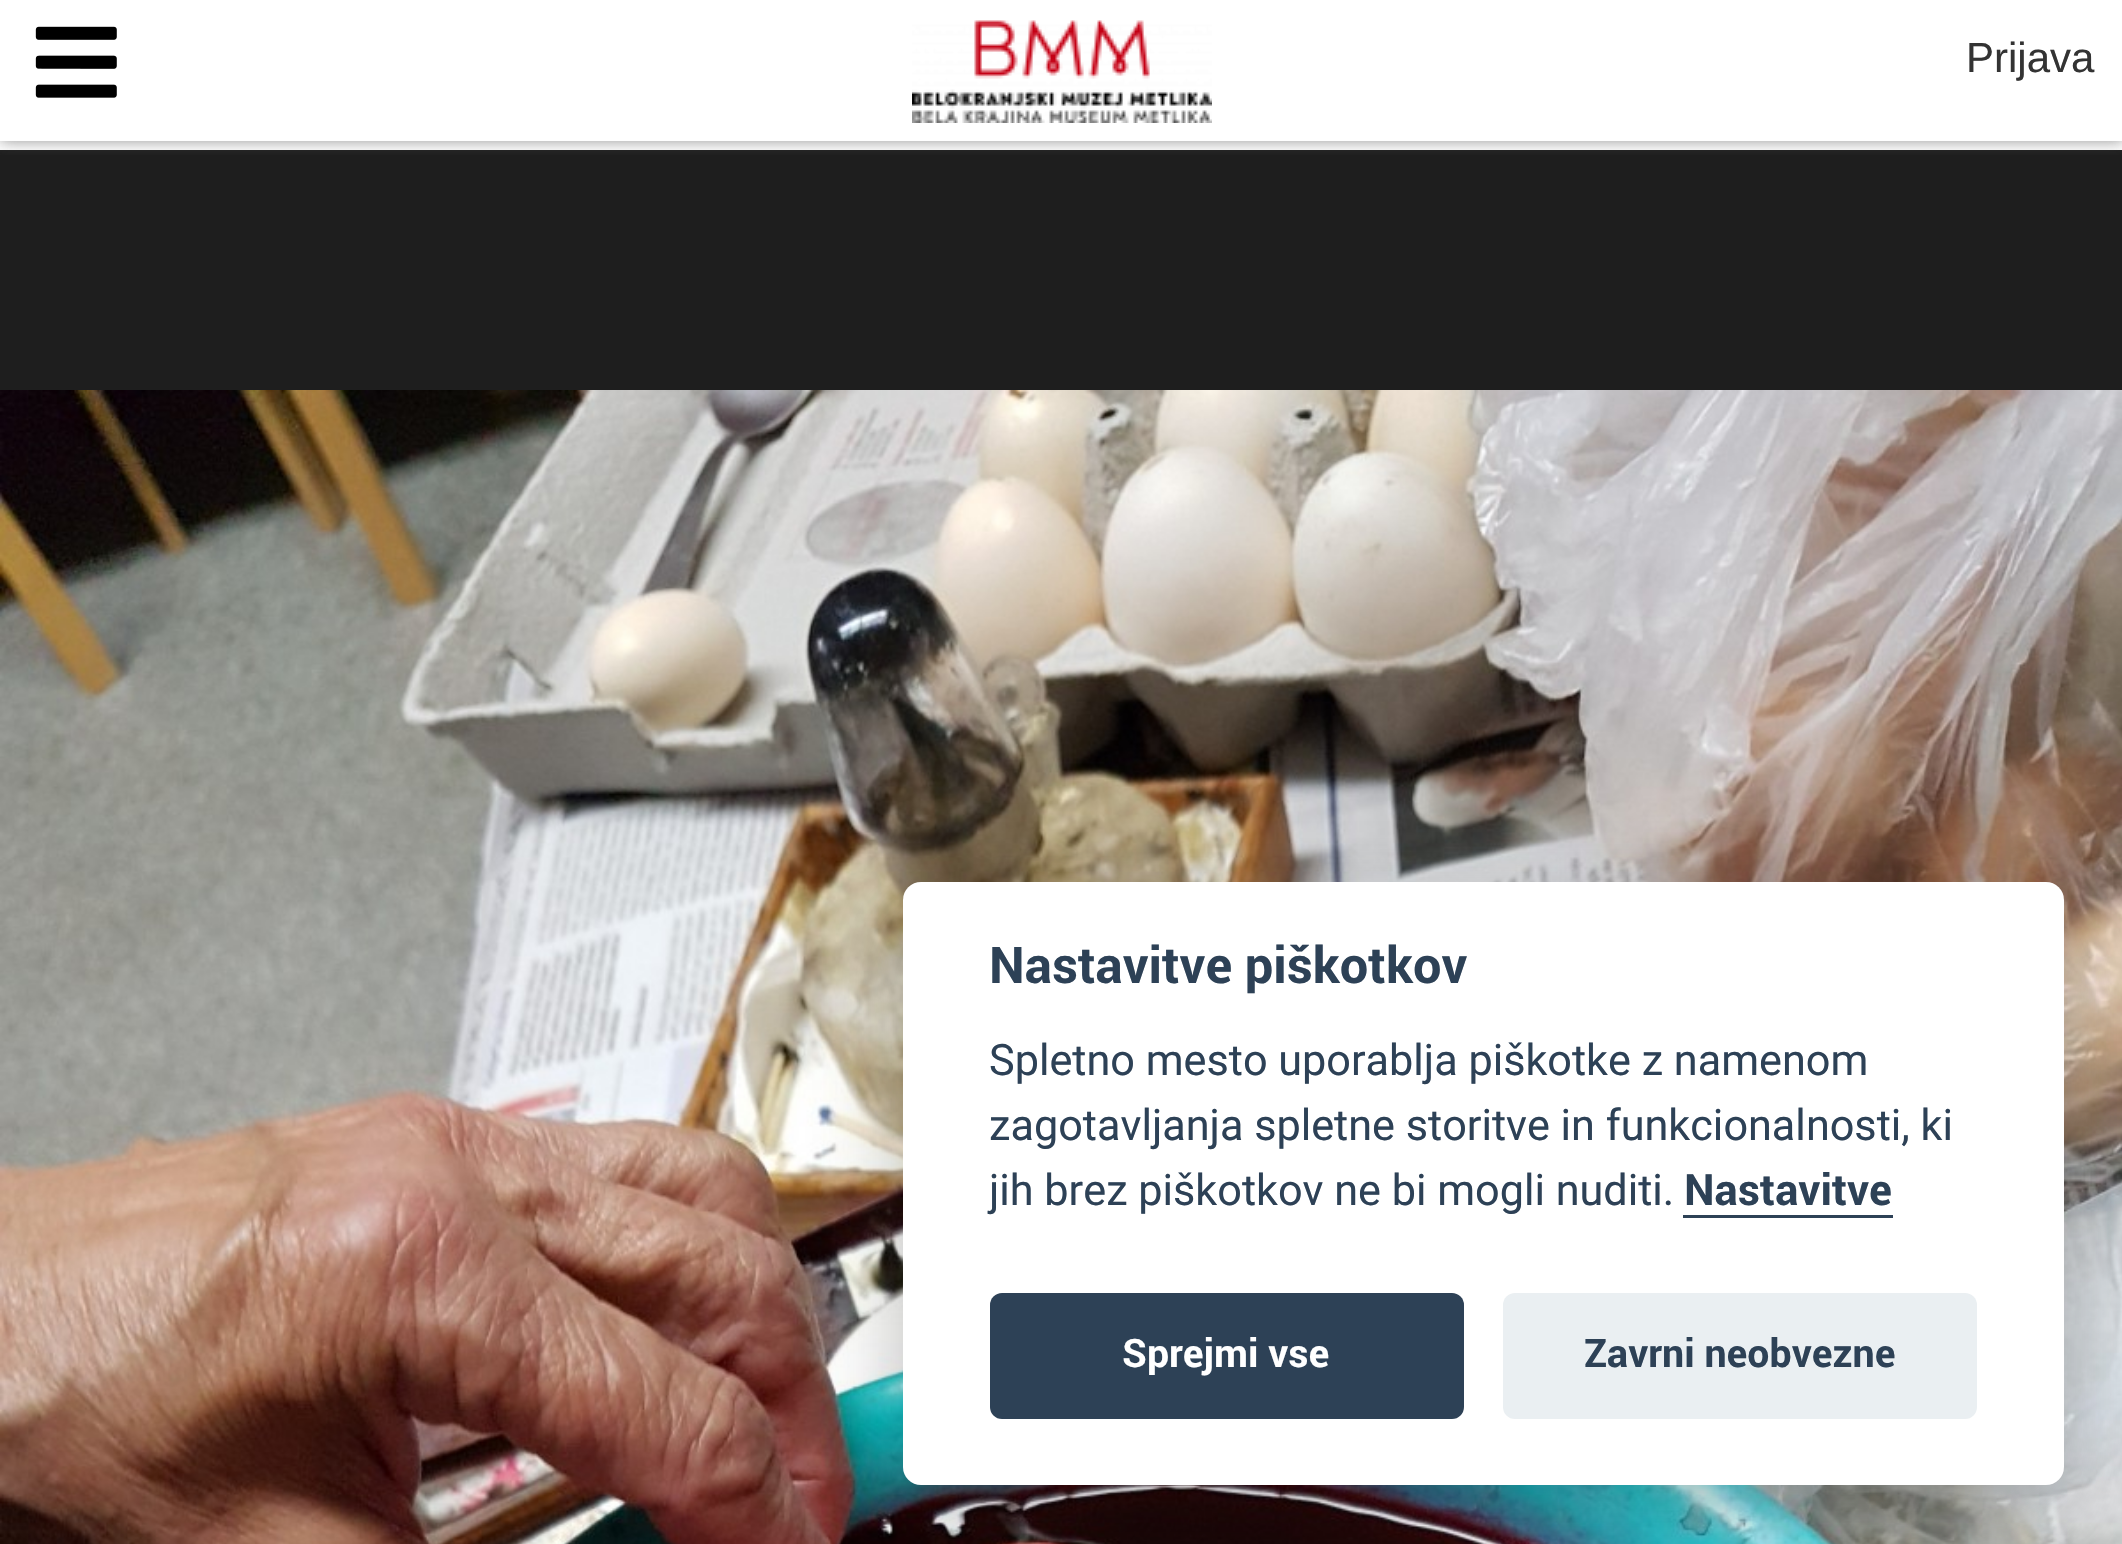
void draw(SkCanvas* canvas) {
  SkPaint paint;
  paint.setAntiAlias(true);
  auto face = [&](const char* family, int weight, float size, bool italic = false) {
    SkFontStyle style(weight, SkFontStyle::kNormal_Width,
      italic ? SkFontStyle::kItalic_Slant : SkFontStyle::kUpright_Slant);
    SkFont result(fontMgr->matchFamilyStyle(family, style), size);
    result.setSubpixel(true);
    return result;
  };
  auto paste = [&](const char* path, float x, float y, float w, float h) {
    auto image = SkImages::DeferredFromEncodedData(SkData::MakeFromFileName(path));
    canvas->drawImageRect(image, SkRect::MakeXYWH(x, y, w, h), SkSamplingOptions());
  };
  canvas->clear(0xff1e1e1e);
  paint.setColor(0xffffffff);
  canvas->drawRect(SkRect::MakeXYWH(0, 0, 2122, 150), paint);
  canvas->save();
  canvas->clipRect(SkRect::MakeXYWH(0, 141, 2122, 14));
  paint.setColor(0xb3646464);
  paint.setMaskFilter(SkMaskFilter::MakeBlur(kNormal_SkBlurStyle, 7.5f));
  canvas->drawRect(SkRect::MakeXYWH(0, 0, 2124, 141), paint);
  paint.setMaskFilter(nullptr);
  canvas->restore();
  paste("img/1.png", 35, 26, 82, 72);
  paste("img/2.png", 912, 20, 300, 103);
  paste("img/3.png", 0, 390, 2122, 1154);
  paint.setColor(0x47020203);
  paint.setMaskFilter(SkMaskFilter::MakeBlur(kNormal_SkBlurStyle, 45));
  canvas->drawRoundRect(SkRect::MakeXYWH(903, 912, 1161, 603), 18, 18, paint);
  paint.setMaskFilter(nullptr);
  paint.setColor(0xffffffff);
  canvas->drawRoundRect(SkRect::MakeXYWH(903, 882, 1161, 603), 18, 18, paint);
  paint.setColor(0xff2d4156);
  canvas->drawRect(SkRect::MakeXYWH(1683, 1215, 210, 3), paint);
  canvas->drawRoundRect(SkRect::MakeXYWH(990, 1293, 474, 126), 12, 12, paint);
  paint.setColor(0xffeaeff2);
  canvas->drawRoundRect(SkRect::MakeXYWH(1503, 1293, 474, 126), 12, 12, paint);
  auto f0 = face("Liberation Sans", 400, 42);
  paint.setColor(0xff333333);
  canvas->drawString("Prijava", 1966, 72, f0, paint);
  auto f1 = face("Roboto", 700, 50.5f);
  paint.setColor(0xff2d4156);
  canvas->drawString("Nastavitve piškotkov", 989, 983, f1, paint);
  auto f2 = face("Roboto", 400, 43.2f);
  {
    const struct { const char* s; float x, y; } items[] = {
      {"Spletno mesto uporablja piškotke z namenom", 989, 1075},
      {"zagotavljanja spletne storitve in funkcionalnosti, ki", 989, 1140},
      {"jih brez piškotkov ne bi mogli nuditi.", 989, 1205},
    };
    for (auto [s, x, y] : items) {
      canvas->drawString(s, x, y, f2, paint);
    }
  }
  auto f3 = face("Roboto", 700, 43.2f);
  canvas->drawString("Nastavitve", 1684, 1205, f3, paint);
  auto f4 = face("Roboto", 700, 39.25f);
  paint.setColor(0xffffffff);
  canvas->drawString("Sprejmi vse", 1122, 1367, f4, paint);
  paint.setColor(0xff2d4156);
  canvas->drawString("Zavrni neobvezne", 1584, 1367, f4, paint);
}
